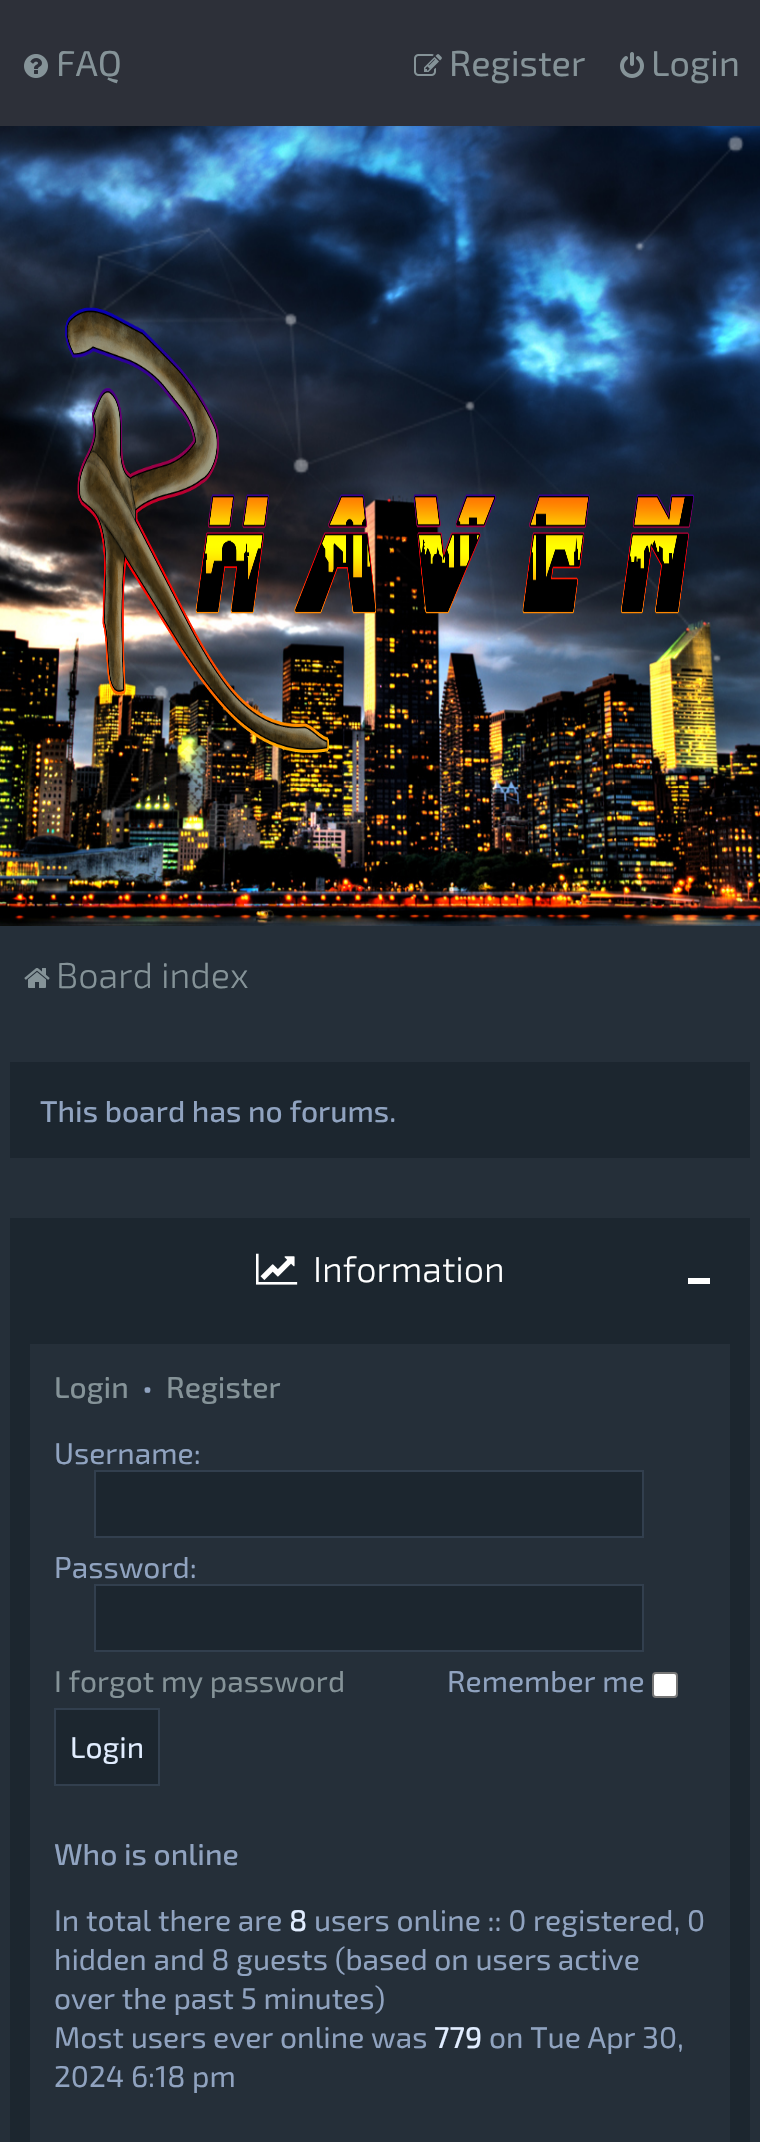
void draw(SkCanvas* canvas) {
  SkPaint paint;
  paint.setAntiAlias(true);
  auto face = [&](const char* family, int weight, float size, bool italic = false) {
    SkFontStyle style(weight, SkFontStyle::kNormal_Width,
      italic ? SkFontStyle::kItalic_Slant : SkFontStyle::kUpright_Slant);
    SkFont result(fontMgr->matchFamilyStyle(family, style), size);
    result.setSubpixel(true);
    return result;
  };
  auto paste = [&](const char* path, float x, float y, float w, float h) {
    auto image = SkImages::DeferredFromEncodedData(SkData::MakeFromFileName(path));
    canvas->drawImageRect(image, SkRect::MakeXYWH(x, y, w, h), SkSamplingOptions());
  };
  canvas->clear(0xffffffff);
  paint.setColor(0xff2d3039);
  canvas->drawRect(SkRect::MakeXYWH(0, 0, 760, 126), paint);
  paste("img/1.png", 24, 54, 24, 24);
  paste("img/2.png", 414, 54, 28, 22);
  paste("img/3.png", 620, 52, 24, 26);
  paste("img/8.png", 0, 126, 760, 800);
  paste("img/4.png", 8, 135, 736, 688);
  paste("img/5.png", 65, 307, 629, 446);
  paint.setColor(0x0d000000);
  paint.setMaskFilter(SkMaskFilter::MakeBlur(kNormal_SkBlurStyle, 5));
  canvas->drawRect(SkRect::MakeXYWH(0, 926, 760, 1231), paint);
  paint.setMaskFilter(nullptr);
  paint.setColor(0xff252f39);
  canvas->drawRect(SkRect::MakeXYWH(0, 926, 760, 1216), paint);
  paste("img/6.png", 24, 968, 26, 20);
  paint.setColor(0xff1c262f);
  canvas->drawRect(SkRect::MakeXYWH(10, 1062, 740, 96), paint);
  canvas->drawRect(SkRect::MakeXYWH(10, 1218, 740, 924), paint);
  paste("img/7.png", 256, 1253, 42, 32);
  paint.setColor(0xffffffff);
  canvas->drawRect(SkRect::MakeXYWH(688, 1278, 22, 6), paint);
  paint.setColor(0xff252f39);
  canvas->drawRect(SkRect::MakeXYWH(30, 1344, 700, 798), paint);
  paint.setColor(0xff1c262f);
  canvas->drawRect(SkRect::MakeXYWH(95, 1471, 548, 66), paint);
  paint.setStroke(true);
  paint.setStrokeWidth(2);
  paint.setColor(0xff323f4e);
  canvas->drawRect(SkRect::MakeXYWH(95, 1471, 548, 66), paint);
  paint.setStroke(false);
  paint.setColor(0xff1c262f);
  canvas->drawRect(SkRect::MakeXYWH(95, 1585, 548, 66), paint);
  paint.setStroke(true);
  paint.setColor(0xff323f4e);
  canvas->drawRect(SkRect::MakeXYWH(95, 1585, 548, 66), paint);
  paint.setStroke(false);
  paint.setColor(0xffffffff);
  canvas->drawRoundRect(SkRect::MakeXYWH(653, 1673, 24, 24), 3, 3, paint);
  paint.setStroke(true);
  paint.setColor(0xff767676);
  canvas->drawRoundRect(SkRect::MakeXYWH(653, 1673, 24, 24), 3, 3, paint);
  paint.setStroke(false);
  paint.setColor(0xff1c262f);
  canvas->drawRect(SkRect::MakeXYWH(55, 1709, 104, 76), paint);
  paint.setStroke(true);
  paint.setColor(0xff323f4e);
  canvas->drawRect(SkRect::MakeXYWH(55, 1709, 104, 76), paint);
  auto f0 = face("Exo 2", 400, 36);
  paint.setStroke(false);
  paint.setColor(0xff859398);
  {
    const struct { const char* s; float x, y; } items[] = {
      {"FAQ", 56, 76},
      {"Register", 449, 76},
      {"Login", 651, 76},
    };
    for (auto [s, x, y] : items) {
      canvas->drawString(s, x, y, f0, paint);
    }
  }
  auto f1 = face("Exo 2", 300, 36);
  canvas->drawString("Board index", 56, 988, f1, paint);
  auto f2 = face("Exo 2", 500, 30);
  paint.setColor(0xff90a3c0);
  canvas->drawString("This board has no forums.", 40, 1122, f2, paint);
  paint.setColor(0xffffffff);
  canvas->drawString("Information", 313, 1282, f1, paint);
  paint.setColor(0xff859398);
  canvas->drawString("Login", 54, 1398, f2, paint);
  paint.setColor(0xff90a3c0);
  canvas->drawString("•", 142, 1398, f2, paint);
  paint.setColor(0xff859398);
  canvas->drawString("Register", 166, 1398, f2, paint);
  auto f3 = face("Exo 2", 400, 30);
  paint.setColor(0xff90a3c0);
  canvas->drawString("Username:", 54, 1464, f3, paint);
  canvas->drawString("Password:", 54, 1578, f3, paint);
  paint.setColor(0xff859398);
  canvas->drawString("I forgot my password", 54, 1692, f3, paint);
  paint.setColor(0xff90a3c0);
  canvas->drawString("Remember me", 447, 1692, f3, paint);
  paint.setColor(0xffe1edff);
  canvas->drawString("Login", 70, 1758, f3, paint);
  paint.setColor(0xff90a3c0);
  canvas->drawString("Who is online", 54, 1865, f2, paint);
  canvas->drawString("In total there are", 54, 1931, f3, paint);
  paint.setColor(0xffe1edff);
  canvas->drawString("8", 289, 1931, f2, paint);
  paint.setColor(0xff90a3c0);
  {
    const struct { const char* s; float x, y; } items[] = {
      {"users online :: 0 registered, 0", 314, 1931},
      {"hidden and 8 guests (based on users active", 54, 1970},
      {"over the past 5 minutes)", 54, 2009},
      {"Most users ever online was", 54, 2048},
    };
    for (auto [s, x, y] : items) {
      canvas->drawString(s, x, y, f3, paint);
    }
  }
  paint.setColor(0xffe1edff);
  canvas->drawString("779", 434, 2048, f2, paint);
  paint.setColor(0xff90a3c0);
  canvas->drawString("on Tue Apr 30,", 489, 2048, f3, paint);
  canvas->drawString("2024 6:18 pm", 54, 2087, f3, paint);
}
